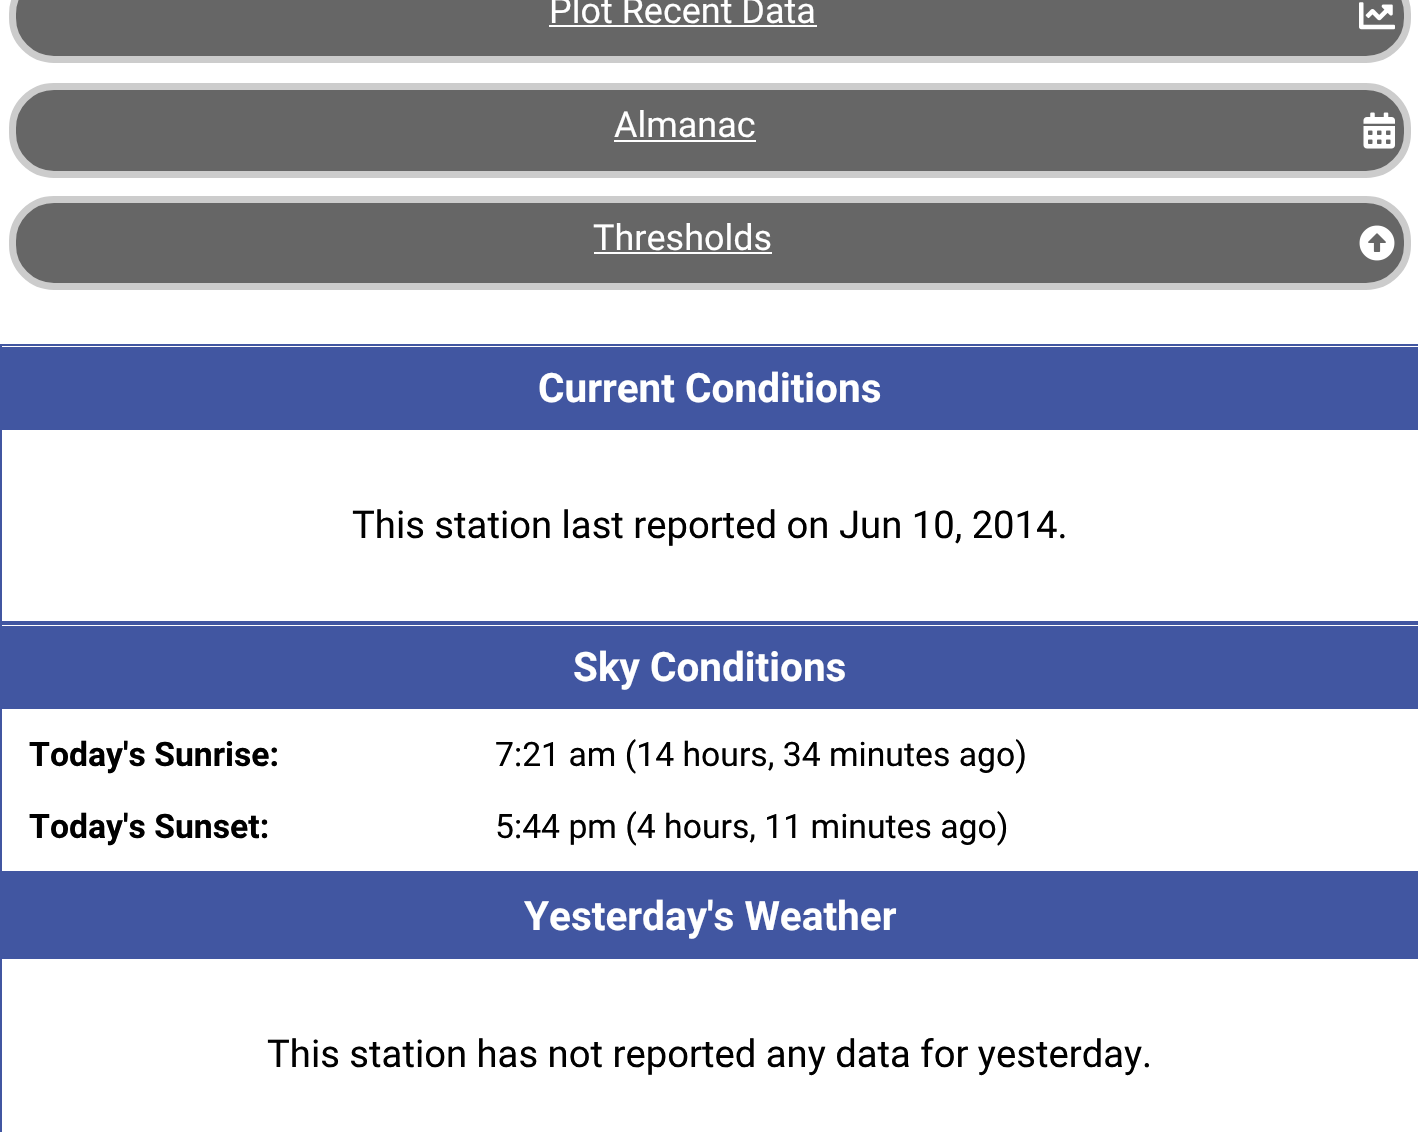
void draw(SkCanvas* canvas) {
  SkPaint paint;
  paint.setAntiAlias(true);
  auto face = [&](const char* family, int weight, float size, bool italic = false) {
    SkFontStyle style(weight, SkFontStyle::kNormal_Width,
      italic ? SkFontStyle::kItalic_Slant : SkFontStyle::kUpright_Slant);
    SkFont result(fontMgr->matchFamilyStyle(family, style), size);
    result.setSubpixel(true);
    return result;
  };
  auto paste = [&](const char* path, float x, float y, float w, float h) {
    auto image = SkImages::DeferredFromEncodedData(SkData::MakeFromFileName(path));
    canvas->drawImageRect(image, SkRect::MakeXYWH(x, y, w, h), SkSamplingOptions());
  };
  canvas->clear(0xffffffff);
  paint.setColor(0xff666666);
  canvas->drawRoundRect(SkRect::MakeXYWH(12.5f, -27.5f, 1395, 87), 41.5f, 41.5f, paint);
  paint.setStroke(true);
  paint.setStrokeWidth(7);
  paint.setColor(0xffcccccc);
  canvas->drawRoundRect(SkRect::MakeXYWH(12.5f, -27.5f, 1395, 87), 41.5f, 41.5f, paint);
  paint.setStroke(false);
  paint.setColor(0xffffffff);
  canvas->drawRect(SkRect::MakeXYWH(549, 25, 268, 2), paint);
  paste("img/1.png", 1359, 2, 36, 28);
  paint.setColor(0xff666666);
  canvas->drawRoundRect(SkRect::MakeXYWH(12.5f, 86.5f, 1395, 88), 41.5f, 41.5f, paint);
  paint.setStroke(true);
  paint.setColor(0xffcccccc);
  canvas->drawRoundRect(SkRect::MakeXYWH(12.5f, 86.5f, 1395, 88), 41.5f, 41.5f, paint);
  paint.setStroke(false);
  paint.setColor(0xffffffff);
  canvas->drawRect(SkRect::MakeXYWH(614, 140, 142, 2), paint);
  paste("img/2.png", 1363, 112, 32, 37);
  paint.setColor(0xff666666);
  canvas->drawRoundRect(SkRect::MakeXYWH(12.5f, 199.5f, 1395, 87), 41.5f, 41.5f, paint);
  paint.setStroke(true);
  paint.setColor(0xffcccccc);
  canvas->drawRoundRect(SkRect::MakeXYWH(12.5f, 199.5f, 1395, 87), 41.5f, 41.5f, paint);
  paint.setStroke(false);
  paint.setColor(0xffffffff);
  canvas->drawRect(SkRect::MakeXYWH(594, 252, 178, 2), paint);
  paste("img/3.png", 1359, 225, 36, 36);
  paint.setStroke(true);
  paint.setStrokeWidth(2);
  paint.setColor(0xff4156a1);
  canvas->drawRect(SkRect::MakeXYWH(1, 345, 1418, 277), paint);
  paint.setStroke(false);
  canvas->drawRect(SkRect::MakeXYWH(2, 347, 1416, 83), paint);
  paint.setStroke(true);
  canvas->drawRect(SkRect::MakeXYWH(1, 624, 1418, 248), paint);
  paint.setStroke(false);
  canvas->drawRect(SkRect::MakeXYWH(2, 626, 1416, 83), paint);
  paint.setStroke(true);
  canvas->drawRect(SkRect::MakeXYWH(1, 874, 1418, 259), paint);
  paint.setStroke(false);
  canvas->drawRect(SkRect::MakeXYWH(2, 875, 1416, 84), paint);
  auto f0 = face("Roboto", 400, 36);
  paint.setColor(0xffffffff);
  {
    const struct { const char* s; float x, y; } items[] = {
      {"Plot Recent Data", 549, 23},
      {"Almanac", 614, 137},
      {"Thresholds", 593, 250},
    };
    for (auto [s, x, y] : items) {
      canvas->drawString(s, x, y, f0, paint);
    }
  }
  auto f1 = face("Roboto", 700, 40.5f);
  canvas->drawString("Current Conditions", 538, 402, f1, paint);
  auto f2 = face("Roboto", 400, 38.25f);
  paint.setColor(0xff000000);
  canvas->drawString("This station last reported on Jun 10, 2014.", 352, 538, f2, paint);
  paint.setColor(0xffffffff);
  canvas->drawString("Sky Conditions", 573, 681, f1, paint);
  auto f3 = face("Roboto", 700, 33.75f);
  paint.setColor(0xff000000);
  canvas->drawString("Today's Sunrise:", 29, 766, f3, paint);
  auto f4 = face("Roboto", 400, 33.75f);
  canvas->drawString("7:21 am (14 hours, 34 minutes ago)", 495, 766, f4, paint);
  canvas->drawString("Today's Sunset:", 29, 838, f3, paint);
  canvas->drawString("5:44 pm (4 hours, 11 minutes ago)", 495, 838, f4, paint);
  paint.setColor(0xffffffff);
  canvas->drawString("Yesterday's Weather", 524, 930, f1, paint);
  paint.setColor(0xff000000);
  canvas->drawString("This station has not reported any data for yesterday.", 267, 1067, f2, paint);
}
